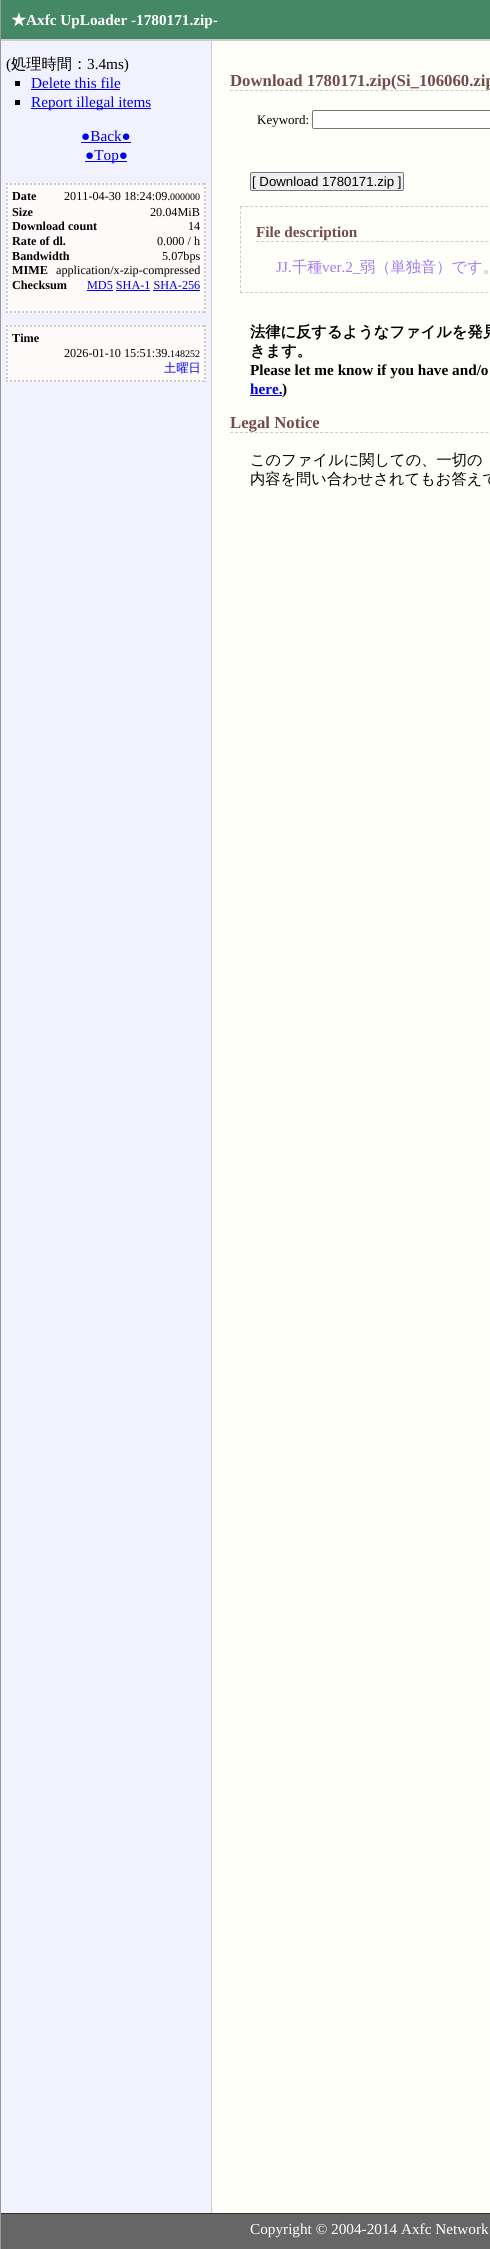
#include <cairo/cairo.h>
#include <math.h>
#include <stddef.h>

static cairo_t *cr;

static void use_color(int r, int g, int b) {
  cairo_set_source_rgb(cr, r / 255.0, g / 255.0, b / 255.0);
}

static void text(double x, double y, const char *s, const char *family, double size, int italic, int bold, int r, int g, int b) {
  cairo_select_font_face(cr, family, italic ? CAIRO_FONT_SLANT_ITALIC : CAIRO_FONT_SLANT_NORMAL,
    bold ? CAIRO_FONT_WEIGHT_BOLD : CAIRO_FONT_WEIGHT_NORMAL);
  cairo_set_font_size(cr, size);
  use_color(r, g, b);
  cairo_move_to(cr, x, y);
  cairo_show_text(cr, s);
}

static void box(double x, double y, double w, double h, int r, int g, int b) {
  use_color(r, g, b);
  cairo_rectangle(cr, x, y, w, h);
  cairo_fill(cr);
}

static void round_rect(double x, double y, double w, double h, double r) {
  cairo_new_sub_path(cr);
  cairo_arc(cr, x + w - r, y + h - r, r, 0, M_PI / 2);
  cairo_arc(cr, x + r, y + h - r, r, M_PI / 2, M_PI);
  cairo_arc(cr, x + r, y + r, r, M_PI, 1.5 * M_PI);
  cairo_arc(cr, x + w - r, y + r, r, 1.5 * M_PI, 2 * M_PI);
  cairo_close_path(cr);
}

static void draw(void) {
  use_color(255, 255, 250);
  cairo_paint(cr);
  box(0, 0, 1, 2249, 153, 153, 153);
  box(1, 0, 489, 39, 68, 136, 102);
  box(1, 39, 489, 2, 204, 204, 204);
  box(1, 41, 210, 2172, 242, 242, 255);
  box(211, 41, 1, 2172, 204, 204, 204);
  box(15, 81, 5, 5, 0, 0, 0);
  box(31, 89, 89, 1, 0, 0, 238);
  box(15, 100, 5, 5, 0, 0, 0);
  box(31, 108, 120, 1, 0, 0, 238);
  box(81, 142, 50, 1, 0, 0, 238);
  box(85, 161, 42, 1, 0, 0, 238);
  box(6, 183, 200, 130, 255, 250, 250);
  cairo_new_path(cr);
  cairo_move_to(cr, 6, 184);
  cairo_line_to(cr, 206, 184);
  use_color(204, 204, 204);
  cairo_set_dash(cr, (double[]){2, 2}, 2, 0);
  cairo_stroke(cr);
  cairo_new_path(cr);
  cairo_move_to(cr, 205, 183);
  cairo_line_to(cr, 205, 313);
  cairo_stroke(cr);
  cairo_new_path(cr);
  cairo_move_to(cr, 6, 312);
  cairo_line_to(cr, 206, 312);
  cairo_stroke(cr);
  cairo_new_path(cr);
  cairo_move_to(cr, 7, 183);
  cairo_line_to(cr, 7, 313);
  cairo_stroke(cr);
  box(87, 290, 26, 1, 0, 0, 238);
  box(116, 290, 34, 1, 0, 0, 238);
  box(153, 290, 47, 1, 0, 0, 238);
  box(6, 325, 200, 57, 255, 250, 250);
  cairo_new_path(cr);
  cairo_move_to(cr, 6, 326);
  cairo_line_to(cr, 206, 326);
  use_color(204, 204, 204);
  cairo_stroke(cr);
  cairo_new_path(cr);
  cairo_move_to(cr, 205, 325);
  cairo_line_to(cr, 205, 382);
  cairo_stroke(cr);
  cairo_new_path(cr);
  cairo_move_to(cr, 6, 381);
  cairo_line_to(cr, 206, 381);
  cairo_stroke(cr);
  cairo_new_path(cr);
  cairo_move_to(cr, 7, 325);
  cairo_line_to(cr, 7, 382);
  cairo_stroke(cr);
  cairo_new_path(cr);
  cairo_move_to(cr, 230, 90.5);
  cairo_line_to(cr, 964, 90.5);
  cairo_set_line_width(cr, 1);
  cairo_set_dash(cr, (double[]){3, 2.01}, 2, 0);
  cairo_stroke(cr);
  use_color(255, 255, 255);
  round_rect(312.5, 110.5, 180, 18, 1.5);
  cairo_fill_preserve(cr);
  use_color(118, 118, 118);
  cairo_set_dash(cr, NULL, 0, 0);
  cairo_stroke(cr);
  use_color(239, 239, 239);
  round_rect(250.5, 172.5, 153, 18, 1.5);
  cairo_fill_preserve(cr);
  use_color(118, 118, 118);
  cairo_stroke(cr);
  cairo_new_path(cr);
  cairo_move_to(cr, 240, 206.5);
  cairo_line_to(cr, 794, 206.5);
  use_color(204, 204, 204);
  cairo_set_dash(cr, (double[]){3, 2.01}, 2, 0);
  cairo_stroke(cr);
  cairo_new_path(cr);
  cairo_move_to(cr, 240, 292.5);
  cairo_line_to(cr, 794, 292.5);
  cairo_stroke(cr);
  cairo_new_path(cr);
  cairo_move_to(cr, 240.5, 206);
  cairo_line_to(cr, 240.5, 293);
  cairo_set_dash(cr, (double[]){3, 1.94}, 2, 0);
  cairo_stroke(cr);
  cairo_new_path(cr);
  cairo_move_to(cr, 256, 241.5);
  cairo_line_to(cr, 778, 241.5);
  cairo_set_dash(cr, (double[]){3, 1.99}, 2, 0);
  cairo_stroke(cr);
  box(250, 395, 32, 1, 0, 0, 238);
  cairo_new_path(cr);
  cairo_move_to(cr, 230, 432.5);
  cairo_line_to(cr, 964, 432.5);
  use_color(204, 204, 204);
  cairo_set_dash(cr, (double[]){3, 2.01}, 2, 0);
  cairo_stroke(cr);
  box(1, 2214, 489, 35, 102, 102, 102);
  box(1, 2213, 489, 1, 51, 51, 51);
  text(11, 25, "★", "WenQuanYi Zen Hei", 15.25, 0, 1, 255, 255, 255);
  text(26, 25, "Axfc UpLoader -1780171.zip-", "Liberation Serif", 15.25, 0, 1, 255, 255, 255);
  text(6, 69, "(", "Liberation Serif", 15.25, 0, 0, 0, 0, 0);
  text(11, 69, "処理時間：", "WenQuanYi Zen Hei Medium", 15.25, 0, 0, 0, 0, 0);
  text(87, 69, "3.4ms)", "Liberation Serif", 15.25, 0, 0, 0, 0, 0);
  text(31, 88, "Delete this file", "Liberation Serif", 15.25, 0, 0, 0, 0, 238);
  text(31, 107, "Report illegal items", "Liberation Serif", 15.25, 0, 0, 0, 0, 238);
  text(81, 141, "●Back●", "Liberation Serif", 15.25, 0, 0, 0, 0, 238);
  text(85, 160, "●Top●", "Liberation Serif", 15.25, 0, 0, 0, 0, 238);
  text(12, 200, "Date", "Liberation Serif", 12.2, 0, 1, 0, 0, 0);
  text(64, 200, "2011-04-30 18:24:09.", "Liberation Serif", 12.2, 0, 0, 0, 0, 0);
  text(170, 200, "000000", "Liberation Serif", 10, 0, 0, 0, 0, 0);
  text(12, 216, "Size", "Liberation Serif", 12.2, 0, 1, 0, 0, 0);
  text(150, 216, "20.04MiB", "Liberation Serif", 12.2, 0, 0, 0, 0, 0);
  text(12, 230, "Download count", "Liberation Serif", 12.2, 0, 1, 0, 0, 0);
  text(188, 230, "14", "Liberation Serif", 12.2, 0, 0, 0, 0, 0);
  text(12, 245, "Rate of dl.", "Liberation Serif", 12.2, 0, 1, 0, 0, 0);
  text(157, 245, "0.000 / h", "Liberation Serif", 12.2, 0, 0, 0, 0, 0);
  text(12, 260, "Bandwidth", "Liberation Serif", 12.2, 0, 1, 0, 0, 0);
  text(162, 260, "5.07bps", "Liberation Serif", 12.2, 0, 0, 0, 0, 0);
  text(12, 274, "MIME", "Liberation Serif", 12.2, 0, 1, 0, 0, 0);
  text(56, 274, "application/x-zip-compressed", "Liberation Serif", 12.2, 0, 0, 0, 0, 0);
  text(12, 289, "Checksum", "Liberation Serif", 12.2, 0, 1, 0, 0, 0);
  text(87, 289, "MD5 SHA-1 SHA-256", "Liberation Serif", 12.2, 0, 0, 0, 0, 238);
  text(12, 342, "Time", "Liberation Serif", 12.2, 0, 1, 0, 0, 0);
  text(64, 357, "2026-01-10 15:51:39.", "Liberation Serif", 12.2, 0, 0, 0, 0, 0);
  text(170, 357, "148252", "Liberation Serif", 10, 0, 0, 0, 0, 0);
  text(164, 372, "土曜日", "WenQuanYi Zen Hei Medium", 12.2, 0, 0, 0, 0, 255);
  text(230, 86, "Download 1780171.zip(Si_106060.zip", "Liberation Serif", 16.75, 0, 1, 116, 75, 75);
  text(257, 124, "Keyword:", "Liberation Serif", 13, 0, 0, 0, 0, 0);
  text(252, 186, "[ Download 1780171.zip ]", "Liberation Sans", 13.25, 0, 0, 0, 0, 0);
  text(256, 237, "File description", "Liberation Serif", 15.25, 0, 1, 116, 75, 75);
  text(276, 272, "JJ.", "Liberation Serif", 15.25, 0, 0, 159, 121, 238);
  text(292, 272, "千種", "WenQuanYi Zen Hei Medium", 15.25, 0, 0, 159, 121, 238);
  text(322, 272, "ver.2_", "Liberation Serif", 15.25, 0, 0, 159, 121, 238);
  text(360, 272, "弱（単独音）です。", "WenQuanYi Zen Hei Medium", 15.25, 0, 0, 159, 121, 238);
  text(250, 337, "法律に反するようなファイルを発見", "WenQuanYi Zen Hei", 15.25, 0, 1, 0, 0, 0);
  text(250, 356, "きます。", "WenQuanYi Zen Hei", 15.25, 0, 1, 0, 0, 0);
  text(250, 375, "Please let me know if you have and/o", "Liberation Serif", 15.25, 0, 1, 0, 0, 0);
  text(250, 394, "here.", "Liberation Serif", 15.25, 0, 1, 0, 0, 238);
  text(282, 394, ")", "Liberation Serif", 15.25, 0, 1, 0, 0, 0);
  text(230, 428, "Legal Notice", "Liberation Serif", 16.75, 0, 1, 116, 75, 75);
  text(250, 465, "このファイルに関しての、一切の", "WenQuanYi Zen Hei Medium", 15.25, 0, 0, 0, 0, 0);
  text(250, 484, "内容を問い合わせされてもお答えで", "WenQuanYi Zen Hei Medium", 15.25, 0, 0, 0, 0, 0);
  text(250, 2234, "Copyright © 2004-2014 Axfc Network", "Liberation Serif", 15.25, 0, 0, 255, 255, 255);
}

int main(void) {
  cairo_surface_t *surface = cairo_image_surface_create(CAIRO_FORMAT_RGB24, 490, 2249);
  cr = cairo_create(surface);
  cairo_font_options_t *options = cairo_font_options_create();
  cairo_font_options_set_hint_metrics(options, CAIRO_HINT_METRICS_OFF);
  cairo_font_options_set_hint_style(options, CAIRO_HINT_STYLE_NONE);
  cairo_set_font_options(cr, options);
  cairo_set_miter_limit(cr, 4);
  draw();
  cairo_surface_write_to_png(surface, "out.png");
  cairo_font_options_destroy(options);
  cairo_destroy(cr);
  cairo_surface_destroy(surface);
  return 0;
}
